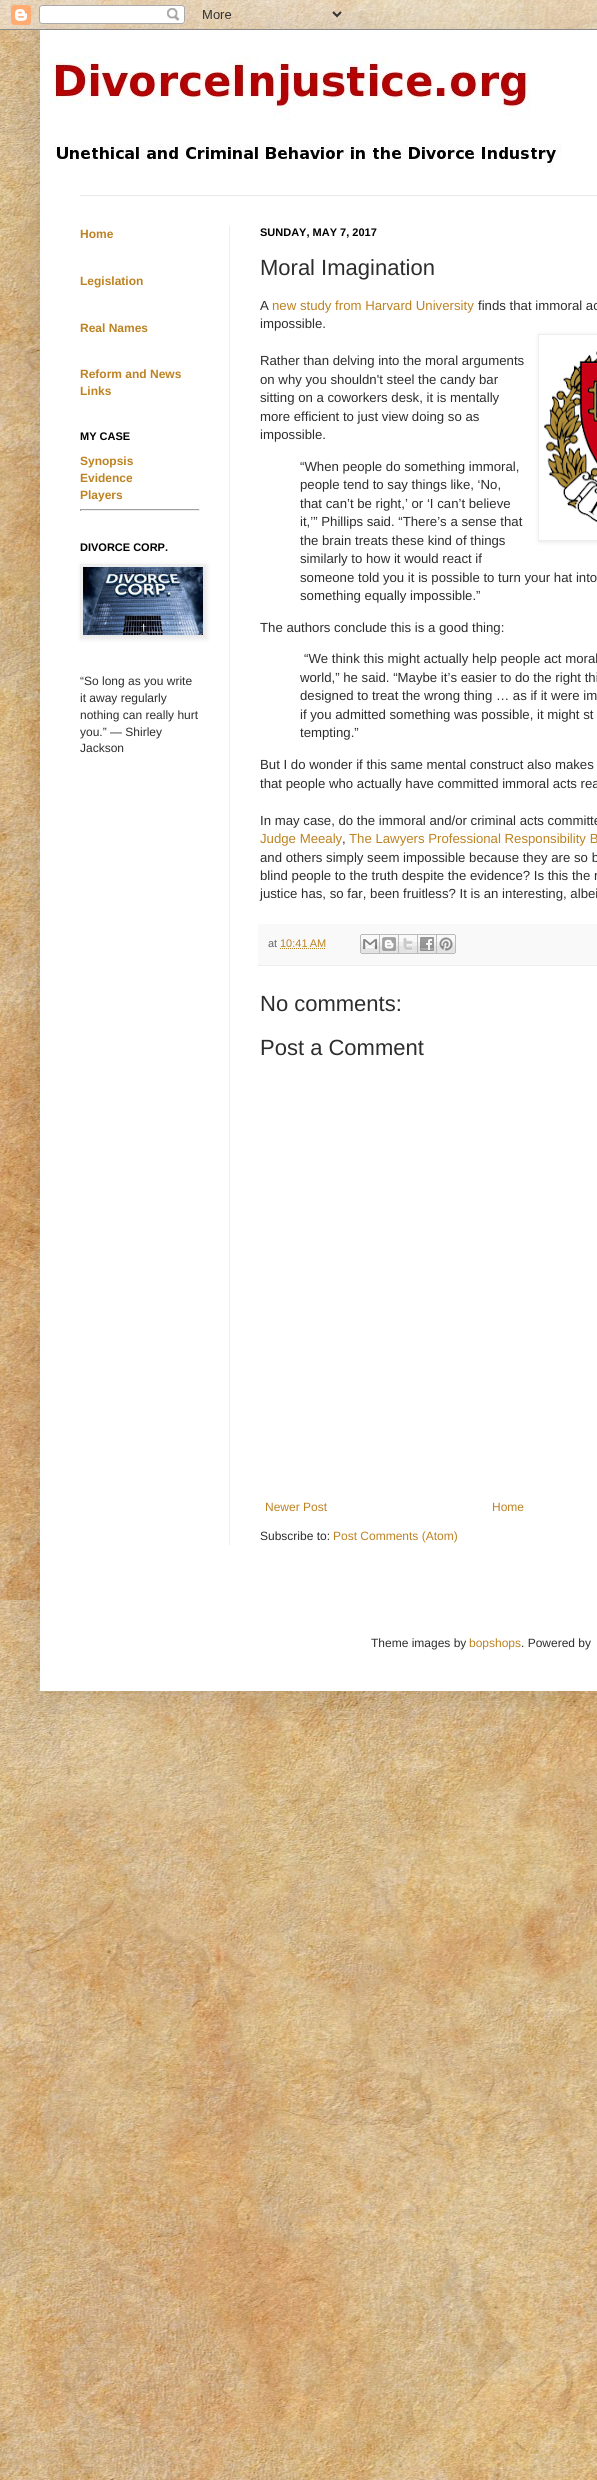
#include <cairo/cairo.h>
#include <math.h>
#include <stddef.h>

static cairo_t *cr;

static void use_color(int r, int g, int b) {
  cairo_set_source_rgb(cr, r / 255.0, g / 255.0, b / 255.0);
}

static void text(double x, double y, const char *s, const char *family, double size, int italic, int bold, int r, int g, int b) {
  cairo_select_font_face(cr, family, italic ? CAIRO_FONT_SLANT_ITALIC : CAIRO_FONT_SLANT_NORMAL,
    bold ? CAIRO_FONT_WEIGHT_BOLD : CAIRO_FONT_WEIGHT_NORMAL);
  cairo_set_font_size(cr, size);
  use_color(r, g, b);
  cairo_move_to(cr, x, y);
  cairo_show_text(cr, s);
}

static void box(double x, double y, double w, double h, int r, int g, int b) {
  use_color(r, g, b);
  cairo_rectangle(cr, x, y, w, h);
  cairo_fill(cr);
}

static void round_rect(double x, double y, double w, double h, double r) {
  cairo_new_sub_path(cr);
  cairo_arc(cr, x + w - r, y + h - r, r, 0, M_PI / 2);
  cairo_arc(cr, x + r, y + h - r, r, M_PI / 2, M_PI);
  cairo_arc(cr, x + r, y + r, r, M_PI, 1.5 * M_PI);
  cairo_arc(cr, x + w - r, y + r, r, 1.5 * M_PI, 2 * M_PI);
  cairo_close_path(cr);
}

static void shadow(double x, double y, double w, double h, double r, double blur, double alpha) {
  cairo_push_group_with_content(cr, CAIRO_CONTENT_ALPHA);
  cairo_set_operator(cr, CAIRO_OPERATOR_SOURCE);
  for (int i = 15; i >= -15 && fmin(w, h) + blur * i / 3 > 0; i -= 2) {
    double e = blur * i / 6;
    cairo_set_source_rgba(cr, 0, 0, 0, alpha * erfc((i - 1) / 8.5) / 2);
    round_rect(x - e, y - e, w + 2 * e, h + 2 * e, fmax(0, fmin(r + e + blur * .6, fmin(w, h) / 2 + e)));
    cairo_fill(cr);
  }
  cairo_pattern_t *soft = cairo_pop_group(cr);
  cairo_mask(cr, soft);
  cairo_pattern_destroy(soft);
}

static void picture(const char *path, double x, double y, double w, double h) {
  cairo_surface_t *image = cairo_image_surface_create_from_png(path);
  cairo_save(cr);
  cairo_set_source_surface(cr, image, x, y);
  cairo_rectangle(cr, x, y, w, h);
  cairo_fill(cr);
  cairo_restore(cr);
  cairo_surface_destroy(image);
}

static void draw(void) {
  use_color(255, 255, 255);
  cairo_paint(cr);
  picture("img_01.png", 0, 400, 597, 2080);
  picture("img_02.png", 0, 0, 597, 400);
  use_color(0, 0, 0);
  shadow(40, 30, 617, 1661, 0, 20, 0.15);
  picture("img_03.png", 0, 0, 597, 30);
  box(40, 30, 557, 1661, 255, 255, 255);
  picture("img_04.png", 50, 55, 512, 113);
  box(80, 195, 517, 1, 233, 233, 233);
  box(229, 226, 1, 1319, 238, 238, 238);
  box(80, 509, 120, 1, 159, 159, 159);
  box(199, 509, 1, 2, 238, 238, 238);
  box(80, 510, 120, 1, 238, 238, 238);
  box(80, 509, 1, 2, 159, 159, 159);
  use_color(0, 0, 0);
  shadow(81, 565, 126, 74, 0, 2.5, 0.1);
  cairo_rectangle(cr, 80.5, 564.5, 125, 73);
  use_color(238, 238, 238);
  cairo_set_line_width(cr, 1);
  cairo_stroke(cr);
  picture("img_05.png", 83, 567, 120, 68);
  cairo_save(cr);
  cairo_set_fill_rule(cr, CAIRO_FILL_RULE_EVEN_ODD);
  cairo_new_path(cr);
  cairo_move_to(cr, 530, 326);
  cairo_line_to(cr, 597, 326);
  cairo_line_to(cr, 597, 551);
  cairo_line_to(cr, 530, 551);
  cairo_close_path(cr);
  cairo_move_to(cr, 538, 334);
  cairo_line_to(cr, 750, 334);
  cairo_line_to(cr, 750, 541);
  cairo_line_to(cr, 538, 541);
  cairo_close_path(cr);
  cairo_clip(cr);
  use_color(0, 0, 0);
  shadow(539, 335, 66, 207, 0, 2.5, 0.1);
  cairo_restore(cr);
  cairo_rectangle(cr, 538.5, 334.5, 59, 206);
  cairo_stroke(cr);
  picture("img_06.png", 544, 351, 53, 172);
  box(258, 924, 339, 41, 249, 249, 249);
  box(258, 965, 339, 1, 238, 238, 238);
  cairo_new_path(cr);
  cairo_move_to(cr, 280, 948.5);
  cairo_line_to(cr, 325.5, 948.5);
  use_color(189, 130, 34);
  cairo_set_dash(cr, (double[]){1, 1}, 2, 0);
  cairo_stroke(cr);
  picture("img_07.png", 360, 934, 20, 20);
  picture("img_08.png", 380, 934, 19, 20);
  picture("img_09.png", 399, 934, 19, 20);
  picture("img_10.png", 418, 934, 19, 20);
  picture("img_11.png", 437, 934, 19, 20);
  text(80, 238, "Home", "Liberation Sans", 12, 0, 1, 189, 130, 34);
  text(80, 285, "Legislation", "Liberation Sans", 12, 0, 1, 189, 130, 34);
  text(80, 332, "Real Names", "Liberation Sans", 12, 0, 1, 189, 130, 34);
  text(80, 378, "Reform and News", "Liberation Sans", 12, 0, 1, 189, 130, 34);
  text(80, 395, "Links", "Liberation Sans", 12, 0, 1, 189, 130, 34);
  text(80, 440, "MY CASE", "Liberation Sans", 11, 0, 1, 0, 0, 0);
  text(80, 465, "Synopsis", "Liberation Sans", 12, 0, 1, 189, 130, 34);
  text(80, 482, "Evidence", "Liberation Sans", 12, 0, 1, 189, 130, 34);
  text(80, 499, "Players", "Liberation Sans", 12, 0, 1, 189, 130, 34);
  text(80, 551, "DIVORCE CORP.", "Liberation Sans", 11, 0, 1, 0, 0, 0);
  text(80, 685, "“So long as you write", "Liberation Sans", 12, 0, 0, 45, 45, 45);
  text(80, 702, "it away regularly", "Liberation Sans", 12, 0, 0, 45, 45, 45);
  text(80, 719, "nothing can really hurt", "Liberation Sans", 12, 0, 0, 45, 45, 45);
  text(80, 736, "you.” ― Shirley", "Liberation Sans", 12, 0, 0, 45, 45, 45);
  text(80, 752, "Jackson", "Liberation Sans", 12, 0, 0, 45, 45, 45);
  text(260, 236, "SUNDAY, MAY 7, 2017", "Liberation Sans", 11, 0, 1, 0, 0, 0);
  text(260, 275, "Moral Imagination", "Liberation Sans", 22, 0, 0, 45, 45, 45);
  text(260, 310, "A", "Liberation Sans", 13.2, 0, 0, 45, 45, 45);
  text(272, 310, "new study from Harvard University", "Liberation Sans", 13.2, 0, 0, 189, 130, 34);
  text(478, 310, "finds that immoral ac", "Liberation Sans", 13.2, 0, 0, 45, 45, 45);
  text(260, 328, "impossible.", "Liberation Sans", 13.2, 0, 0, 45, 45, 45);
  text(260, 365, "Rather than delving into the moral arguments", "Liberation Sans", 13.2, 0, 0, 45, 45, 45);
  text(260, 384, "on why you shouldn't steel the candy bar", "Liberation Sans", 13.2, 0, 0, 45, 45, 45);
  text(260, 402, "sitting on a coworkers desk, it is mentally", "Liberation Sans", 13.2, 0, 0, 45, 45, 45);
  text(260, 421, "more efficient to just view doing so as", "Liberation Sans", 13.2, 0, 0, 45, 45, 45);
  text(260, 439, "impossible.", "Liberation Sans", 13.2, 0, 0, 45, 45, 45);
  text(300, 471, "“When people do something immoral,", "Liberation Sans", 13.2, 0, 0, 45, 45, 45);
  text(300, 489, "people tend to say things like, ‘No,", "Liberation Sans", 13.2, 0, 0, 45, 45, 45);
  text(300, 508, "that can’t be right,’ or ‘I can’t believe", "Liberation Sans", 13.2, 0, 0, 45, 45, 45);
  text(300, 526, "it,’” Phillips said. “There’s a sense that", "Liberation Sans", 13.2, 0, 0, 45, 45, 45);
  text(300, 545, "the brain treats these kind of things", "Liberation Sans", 13.2, 0, 0, 45, 45, 45);
  text(300, 563, "similarly to how it would react if", "Liberation Sans", 13.2, 0, 0, 45, 45, 45);
  text(300, 582, "someone told you it is possible to turn your hat into", "Liberation Sans", 13.2, 0, 0, 45, 45, 45);
  text(300, 600, "something equally impossible.”", "Liberation Sans", 13.2, 0, 0, 45, 45, 45);
  text(260, 632, "The authors conclude this is a good thing:", "Liberation Sans", 13.2, 0, 0, 45, 45, 45);
  text(304, 663, "“We think this might actually help people act moral", "Liberation Sans", 13.2, 0, 0, 45, 45, 45);
  text(300, 682, "world,” he said. “Maybe it’s easier to do the right thi", "Liberation Sans", 13.2, 0, 0, 45, 45, 45);
  text(300, 700, "designed to treat the wrong thing … as if it were im", "Liberation Sans", 13.2, 0, 0, 45, 45, 45);
  text(300, 719, "if you admitted something was possible, it might st", "Liberation Sans", 13.2, 0, 0, 45, 45, 45);
  text(300, 737, "tempting.”", "Liberation Sans", 13.2, 0, 0, 45, 45, 45);
  text(260, 769, "But I do wonder if this same mental construct also makes", "Liberation Sans", 13.2, 0, 0, 45, 45, 45);
  text(260, 788, "that people who actually have committed immoral acts rea", "Liberation Sans", 13.2, 0, 0, 45, 45, 45);
  text(260, 825, "In may case, do the immoral and/or criminal acts committe", "Liberation Sans", 13.2, 0, 0, 45, 45, 45);
  text(260, 843, "Judge Meealy", "Liberation Sans", 13.2, 0, 0, 189, 130, 34);
  text(342, 843, ",", "Liberation Sans", 13.2, 0, 0, 45, 45, 45);
  text(349, 843, "The Lawyers Professional Responsibility B", "Liberation Sans", 13.2, 0, 0, 189, 130, 34);
  text(260, 862, "and others simply seem impossible because they are so b", "Liberation Sans", 13.2, 0, 0, 45, 45, 45);
  text(260, 880, "blind people to the truth despite the evidence? Is this the r", "Liberation Sans", 13.2, 0, 0, 45, 45, 45);
  text(260, 898, "justice has, so far, been fruitless? It is an interesting, albei", "Liberation Sans", 13.2, 0, 0, 45, 45, 45);
  text(268, 947, "at", "Liberation Sans", 11, 0, 0, 103, 103, 103);
  text(280, 947, "10:41 AM", "Liberation Sans", 11, 0, 0, 189, 130, 34);
  text(260, 1011, "No comments:", "Liberation Sans", 22, 0, 0, 45, 45, 45);
  text(260, 1055, "Post a Comment", "Liberation Sans", 22, 0, 0, 45, 45, 45);
  text(265, 1511, "Newer Post", "Liberation Sans", 12, 0, 0, 189, 130, 34);
  text(492, 1511, "Home", "Liberation Sans", 12, 0, 0, 189, 130, 34);
  text(260, 1540, "Subscribe to:", "Liberation Sans", 12, 0, 0, 45, 45, 45);
  text(333, 1540, "Post Comments (Atom)", "Liberation Sans", 12, 0, 0, 189, 130, 34);
  text(371, 1647, "Theme images by", "Liberation Sans", 12, 0, 0, 45, 45, 45);
  text(469, 1647, "bopshops", "Liberation Sans", 12, 0, 0, 189, 130, 34);
  text(521, 1647, ". Powered by", "Liberation Sans", 12, 0, 0, 45, 45, 45);
}

int main(void) {
  cairo_surface_t *surface = cairo_image_surface_create(CAIRO_FORMAT_RGB24, 597, 2480);
  cr = cairo_create(surface);
  cairo_font_options_t *options = cairo_font_options_create();
  cairo_font_options_set_hint_metrics(options, CAIRO_HINT_METRICS_OFF);
  cairo_font_options_set_hint_style(options, CAIRO_HINT_STYLE_NONE);
  cairo_set_font_options(cr, options);
  cairo_set_miter_limit(cr, 4);
  draw();
  cairo_surface_write_to_png(surface, "out.png");
  cairo_font_options_destroy(options);
  cairo_destroy(cr);
  cairo_surface_destroy(surface);
  return 0;
}
